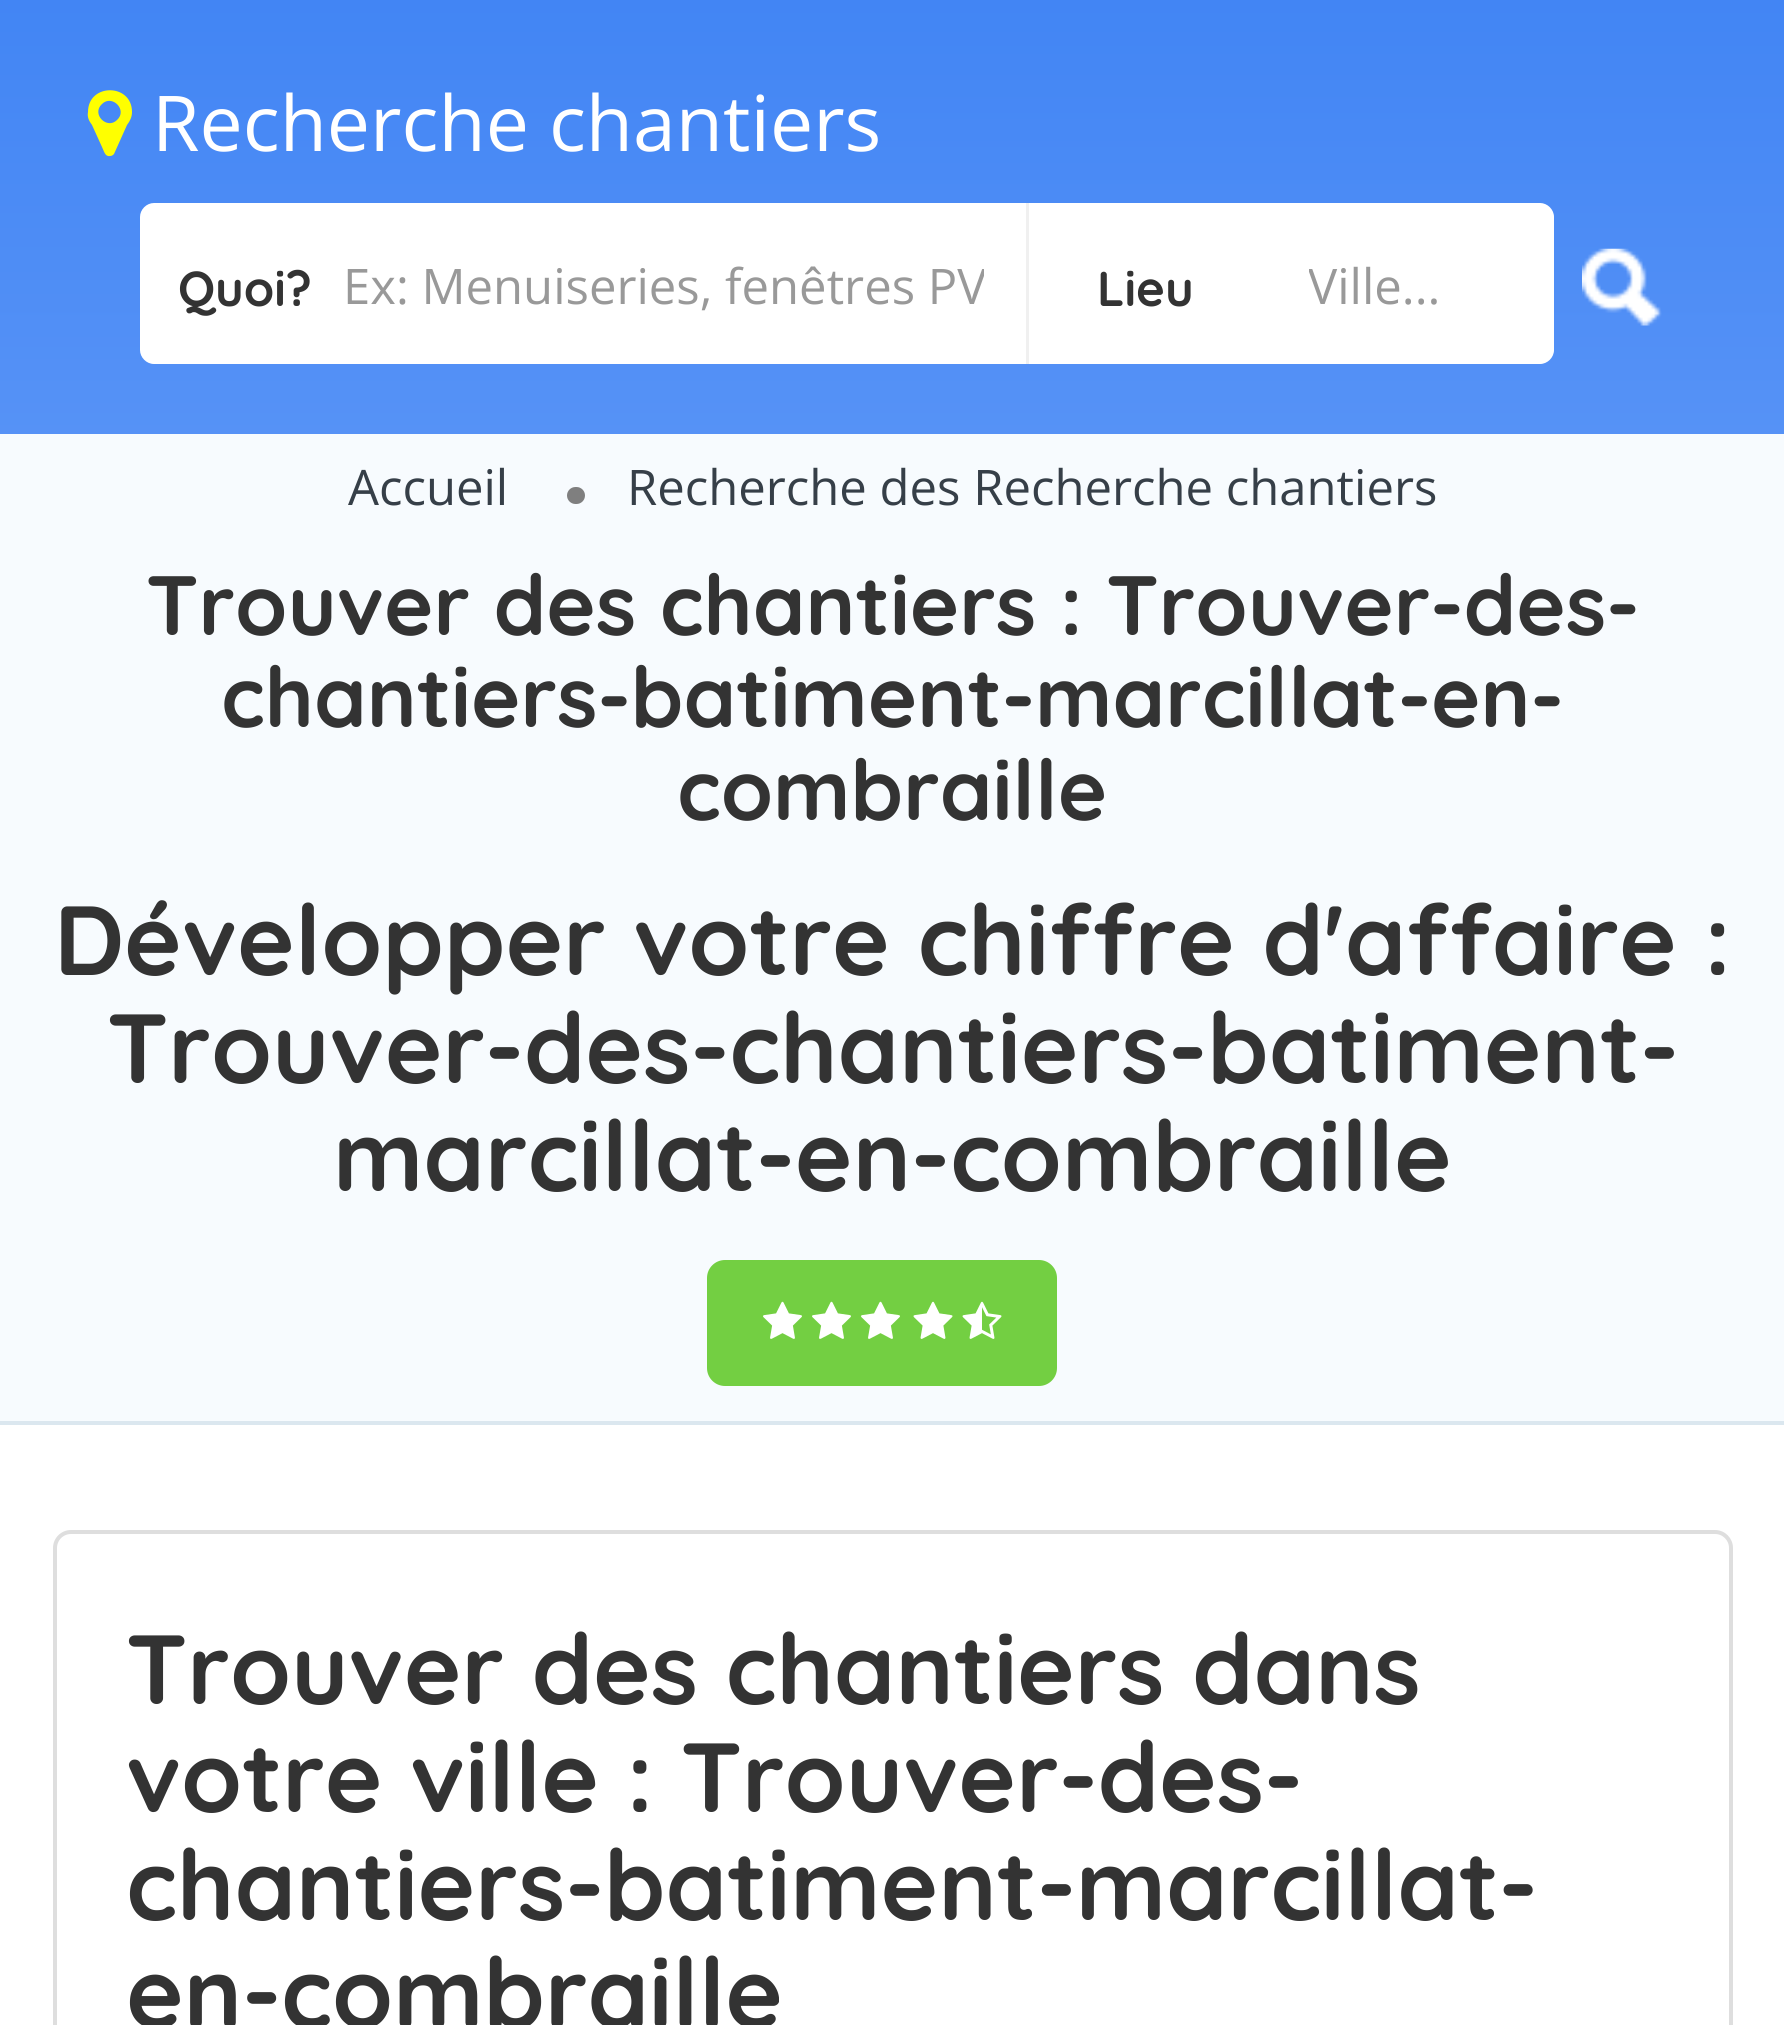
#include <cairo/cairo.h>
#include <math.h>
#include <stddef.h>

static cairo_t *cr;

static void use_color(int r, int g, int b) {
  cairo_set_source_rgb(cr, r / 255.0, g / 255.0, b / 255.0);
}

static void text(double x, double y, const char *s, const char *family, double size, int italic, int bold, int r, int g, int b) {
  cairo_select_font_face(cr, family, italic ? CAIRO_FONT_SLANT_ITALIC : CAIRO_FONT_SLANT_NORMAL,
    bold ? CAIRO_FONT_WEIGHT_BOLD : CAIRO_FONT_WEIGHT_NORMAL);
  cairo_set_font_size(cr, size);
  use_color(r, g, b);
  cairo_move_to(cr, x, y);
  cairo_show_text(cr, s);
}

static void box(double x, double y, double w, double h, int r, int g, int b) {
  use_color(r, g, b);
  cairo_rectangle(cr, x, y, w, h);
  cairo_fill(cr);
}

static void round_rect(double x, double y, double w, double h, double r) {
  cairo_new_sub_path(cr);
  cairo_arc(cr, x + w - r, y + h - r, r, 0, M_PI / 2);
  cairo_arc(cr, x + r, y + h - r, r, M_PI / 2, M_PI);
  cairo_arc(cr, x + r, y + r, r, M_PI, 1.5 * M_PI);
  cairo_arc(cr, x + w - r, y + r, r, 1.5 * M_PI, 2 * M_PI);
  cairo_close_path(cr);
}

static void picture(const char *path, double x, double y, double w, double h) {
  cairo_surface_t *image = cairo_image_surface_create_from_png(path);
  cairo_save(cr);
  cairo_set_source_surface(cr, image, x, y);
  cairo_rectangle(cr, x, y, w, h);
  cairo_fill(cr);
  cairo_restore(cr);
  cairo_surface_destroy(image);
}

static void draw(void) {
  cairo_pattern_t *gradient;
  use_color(255, 255, 255);
  cairo_paint(cr);
  gradient = cairo_pattern_create_linear(893, 0, 893, 434);
  cairo_pattern_add_color_stop_rgba(gradient, 0, 0.259, 0.522, 0.957, 1);
  cairo_pattern_add_color_stop_rgba(gradient, 1, 0.337, 0.573, 0.965, 1);
  cairo_set_source(cr, gradient);
  cairo_pattern_destroy(gradient);
  cairo_rectangle(cr, 0, 0, 1784, 434);
  cairo_fill(cr);
  use_color(255, 255, 0);
  cairo_new_path(cr);
  cairo_move_to(cr, 117, 120);
  cairo_curve_to(cr, 128, 110, 112, 94, 102, 104);
  cairo_curve_to(cr, 91, 114, 107, 130, 117, 120);
  cairo_close_path(cr);
  cairo_move_to(cr, 132, 112);
  cairo_curve_to(cr, 132, 117, 130, 121, 127, 125);
  cairo_line_to(cr, 114, 154);
  cairo_curve_to(cr, 113, 155, 112, 156, 110, 156);
  cairo_curve_to(cr, 105, 157, 104, 151, 102, 147);
  cairo_line_to(cr, 92, 125);
  cairo_curve_to(cr, 89, 121, 87, 117, 88, 112);
  cairo_curve_to(cr, 88, 83, 132, 83, 132, 112);
  cairo_close_path(cr);
  cairo_fill(cr);
  use_color(255, 255, 255);
  cairo_new_path(cr);
  cairo_move_to(cr, 154, 203);
  cairo_line_to(cr, 1029, 203);
  cairo_line_to(cr, 1029, 364);
  cairo_line_to(cr, 154, 364);
  cairo_curve_to(cr, 146.5, 364, 140, 357.5, 140, 350);
  cairo_line_to(cr, 140, 217);
  cairo_curve_to(cr, 140, 209.5, 146.5, 203, 154, 203);
  cairo_close_path(cr);
  cairo_fill(cr);
  box(1026, 203, 3, 161, 240, 240, 240);
  use_color(255, 255, 255);
  cairo_new_path(cr);
  cairo_move_to(cr, 1029, 203);
  cairo_line_to(cr, 1540, 203);
  cairo_curve_to(cr, 1547.5, 203, 1554, 209.5, 1554, 217);
  cairo_line_to(cr, 1554, 350);
  cairo_curve_to(cr, 1554, 357.5, 1547.5, 364, 1540, 364);
  cairo_line_to(cr, 1029, 364);
  cairo_close_path(cr);
  cairo_fill(cr);
  cairo_new_path(cr);
  cairo_move_to(cr, 1029, 203);
  cairo_line_to(cr, 1536, 203);
  cairo_curve_to(cr, 1546, 203, 1554, 211, 1554, 221);
  cairo_line_to(cr, 1554, 346);
  cairo_curve_to(cr, 1554, 356, 1546, 364, 1536, 364);
  cairo_line_to(cr, 1029, 364);
  cairo_close_path(cr);
  cairo_fill(cr);
  picture("img_01.png", 1582, 248, 80, 78);
  box(0, 434, 1784, 987, 247, 251, 254);
  box(0, 1421, 1784, 4, 219, 231, 239);
  use_color(127, 127, 127);
  round_rect(567, 487, 18, 17, 8.5);
  cairo_fill(cr);
  use_color(115, 207, 66);
  round_rect(707, 1260, 350, 126, 18);
  cairo_fill(cr);
  picture("img_02.png", 763, 1301, 39, 38);
  picture("img_02.png", 812, 1301, 39, 38);
  picture("img_02.png", 861, 1301, 39, 38);
  picture("img_03.png", 913, 1301, 40, 38);
  picture("img_04.png", 962, 1301, 40, 38);
  round_rect(55, 1532, 1676, 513, 16);
  use_color(222, 222, 222);
  cairo_set_line_width(cr, 4);
  cairo_stroke(cr);
  text(152, 151, "Recherche chantiers", "Open Sans", 77, 0, 0, 255, 255, 255);
  text(178, 306, "Quoi?", "Quicksand", 49, 0, 1, 51, 51, 51);
  cairo_save(cr);
  cairo_rectangle(cr, 343, 252, 641, 67);
  cairo_clip(cr);
  text(343, 304, "Ex: Menuiseries, fenêtres PV", "Open Sans", 49, 0, 0, 153, 153, 153);
  cairo_restore(cr);
  text(1097, 306, "Lieu", "Quicksand", 49, 0, 1, 51, 51, 51);
  cairo_save(cr);
  cairo_rectangle(cr, 1309, 252, 203, 67);
  cairo_clip(cr);
  text(1308, 304, "Ville...", "Open Sans", 49, 0, 0, 153, 153, 153);
  cairo_restore(cr);
  text(348, 505, "Accueil", "Open Sans", 49, 0, 0, 54, 63, 72);
  text(627, 505, "Recherche des Recherche chantiers", "Open Sans", 49, 0, 0, 54, 63, 72);
  text(146, 635, "Trouver des chantiers : Trouver-des-", "Quicksand", 84, 0, 1, 51, 51, 51);
  text(221, 727, "chantiers-batiment-marcillat-en-", "Quicksand", 84, 0, 1, 51, 51, 51);
  text(677, 820, "combraille", "Quicksand", 84, 0, 1, 51, 51, 51);
  text(54, 975, "Développer votre chiffre d'affaire :", "Quicksand", 98, 0, 1, 51, 51, 51);
  text(107, 1083, "Trouver-des-chantiers-batiment-", "Quicksand", 98, 0, 1, 51, 51, 51);
  text(333, 1191, "marcillat-en-combraille", "Quicksand", 98, 0, 1, 51, 51, 51);
  text(126, 1704, "Trouver des chantiers dans", "Quicksand", 98, 0, 1, 51, 51, 51);
  text(126, 1812, "votre ville : Trouver-des-", "Quicksand", 98, 0, 1, 51, 51, 51);
  text(126, 1920, "chantiers-batiment-marcillat-", "Quicksand", 98, 0, 1, 51, 51, 51);
  text(126, 2028, "en-combraille", "Quicksand", 98, 0, 1, 51, 51, 51);
}

int main(void) {
  cairo_surface_t *surface = cairo_image_surface_create(CAIRO_FORMAT_RGB24, 1784, 2025);
  cr = cairo_create(surface);
  cairo_font_options_t *options = cairo_font_options_create();
  cairo_font_options_set_hint_metrics(options, CAIRO_HINT_METRICS_OFF);
  cairo_font_options_set_hint_style(options, CAIRO_HINT_STYLE_NONE);
  cairo_set_font_options(cr, options);
  cairo_set_miter_limit(cr, 4);
  draw();
  cairo_surface_write_to_png(surface, "out.png");
  cairo_font_options_destroy(options);
  cairo_destroy(cr);
  cairo_surface_destroy(surface);
  return 0;
}
